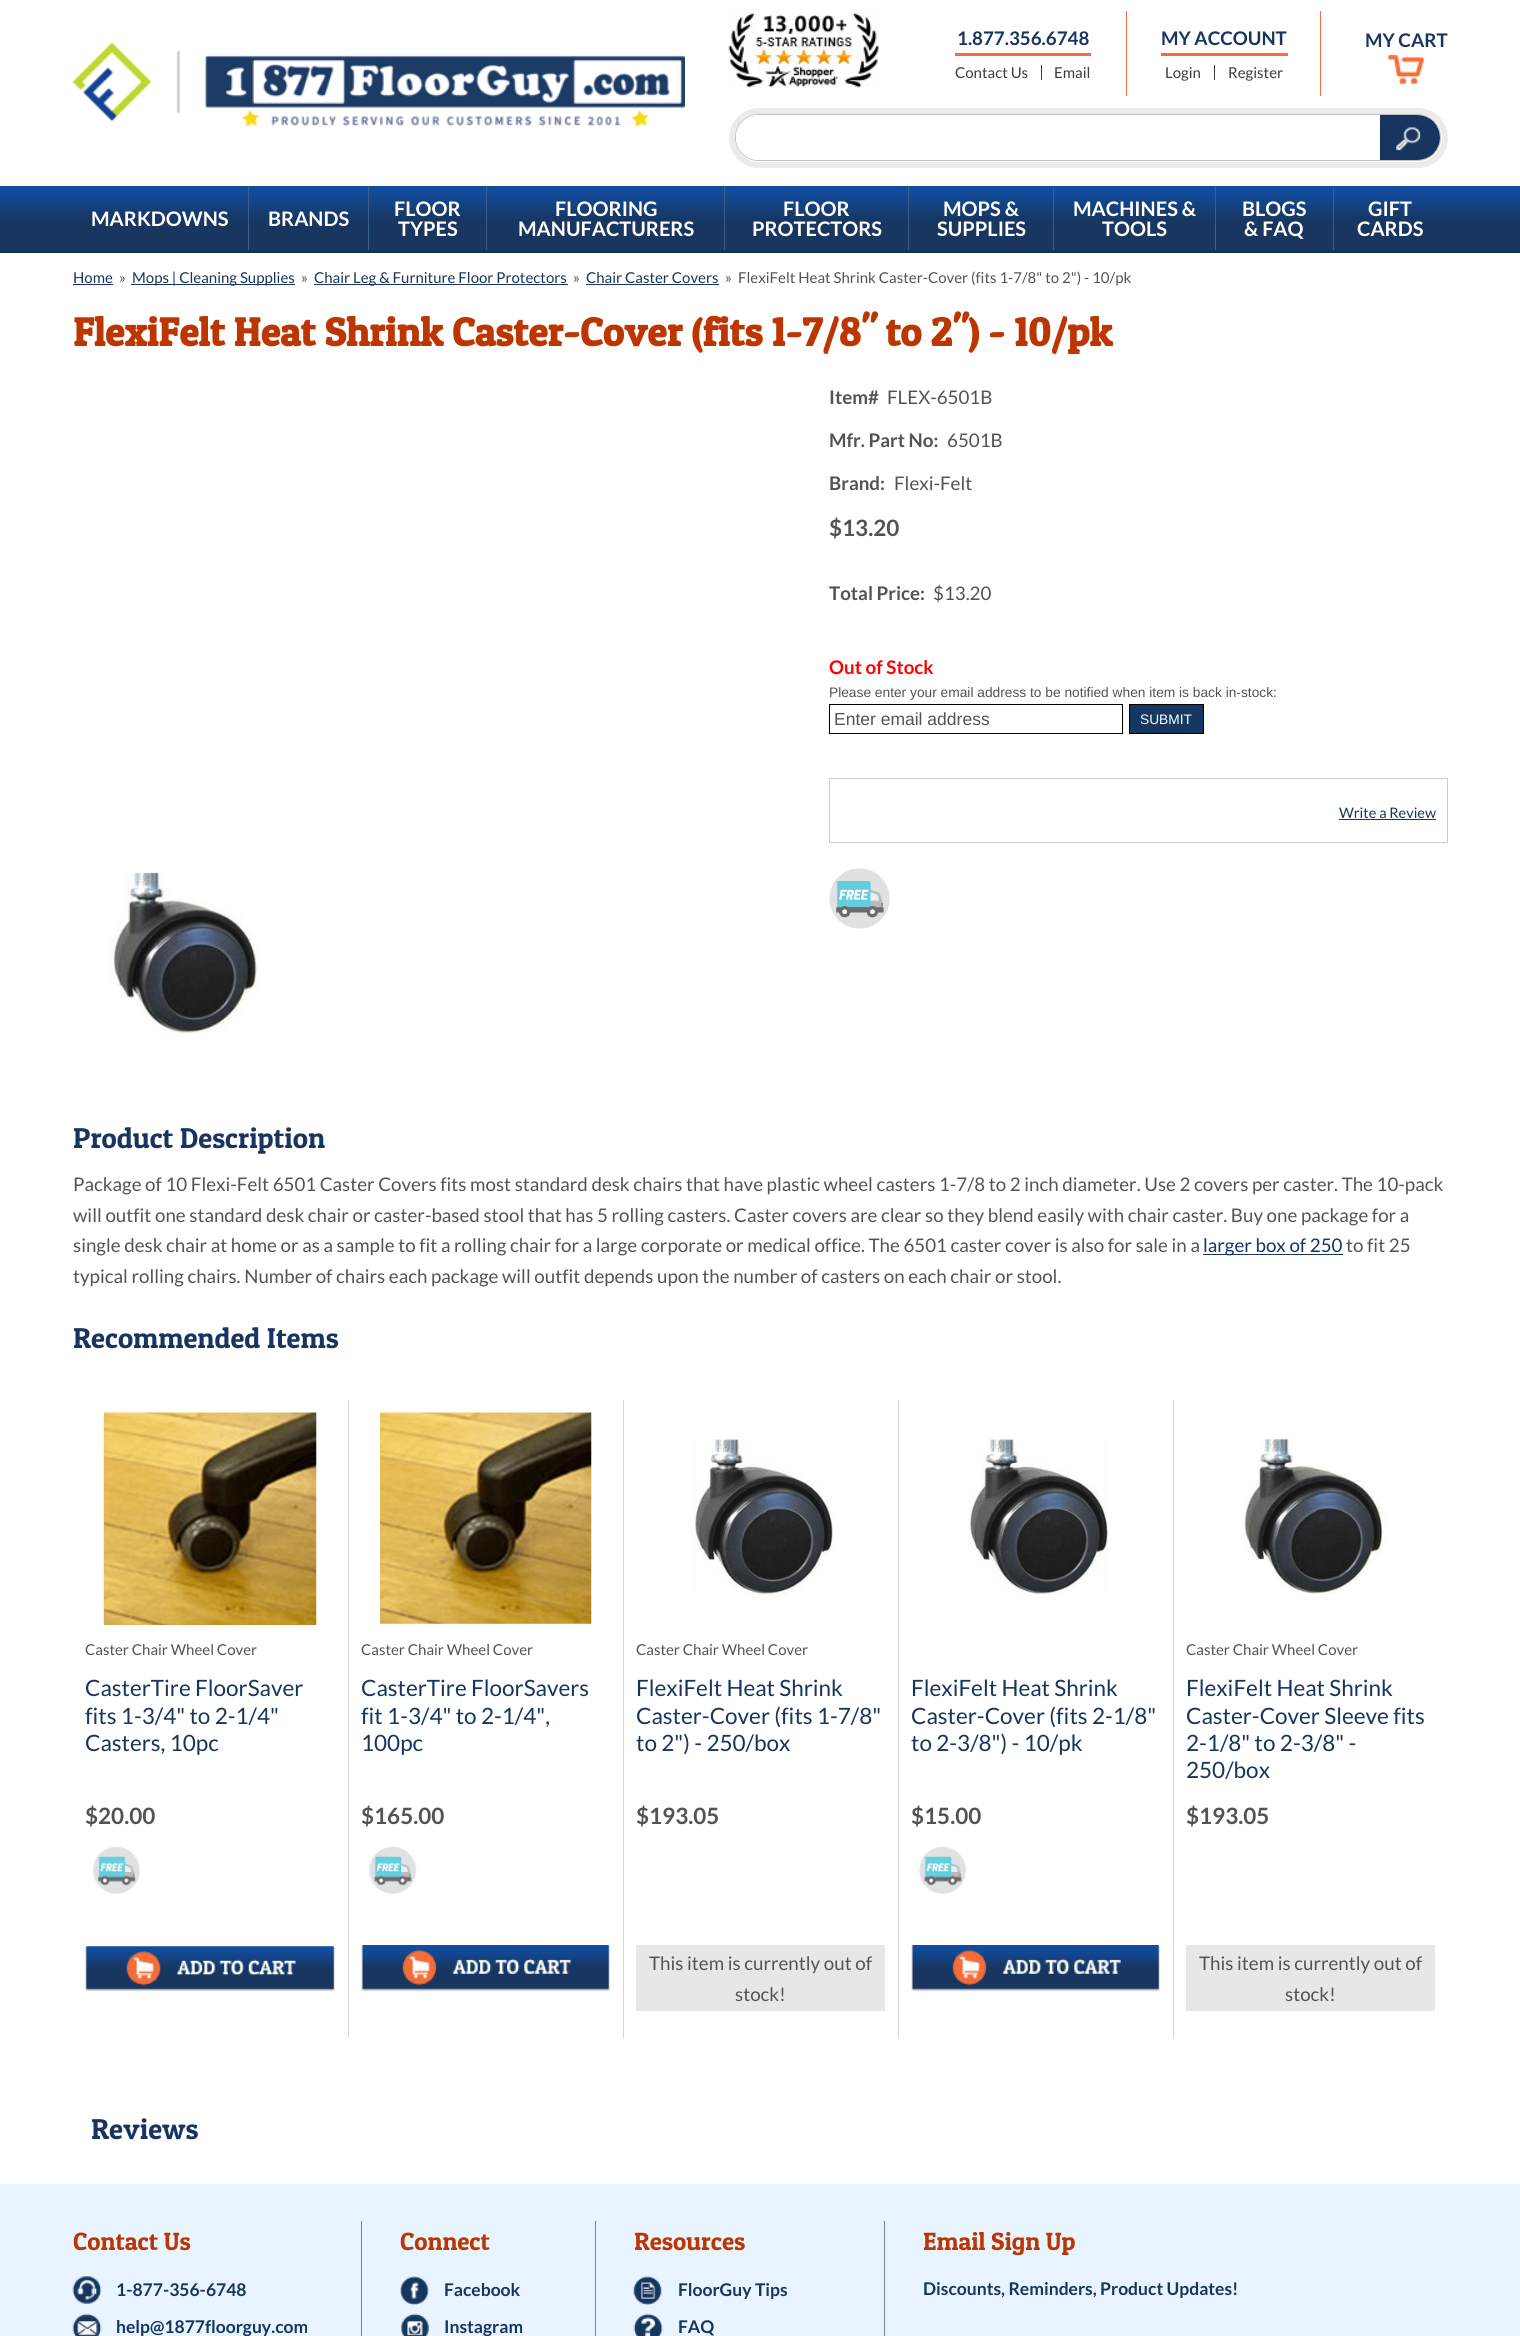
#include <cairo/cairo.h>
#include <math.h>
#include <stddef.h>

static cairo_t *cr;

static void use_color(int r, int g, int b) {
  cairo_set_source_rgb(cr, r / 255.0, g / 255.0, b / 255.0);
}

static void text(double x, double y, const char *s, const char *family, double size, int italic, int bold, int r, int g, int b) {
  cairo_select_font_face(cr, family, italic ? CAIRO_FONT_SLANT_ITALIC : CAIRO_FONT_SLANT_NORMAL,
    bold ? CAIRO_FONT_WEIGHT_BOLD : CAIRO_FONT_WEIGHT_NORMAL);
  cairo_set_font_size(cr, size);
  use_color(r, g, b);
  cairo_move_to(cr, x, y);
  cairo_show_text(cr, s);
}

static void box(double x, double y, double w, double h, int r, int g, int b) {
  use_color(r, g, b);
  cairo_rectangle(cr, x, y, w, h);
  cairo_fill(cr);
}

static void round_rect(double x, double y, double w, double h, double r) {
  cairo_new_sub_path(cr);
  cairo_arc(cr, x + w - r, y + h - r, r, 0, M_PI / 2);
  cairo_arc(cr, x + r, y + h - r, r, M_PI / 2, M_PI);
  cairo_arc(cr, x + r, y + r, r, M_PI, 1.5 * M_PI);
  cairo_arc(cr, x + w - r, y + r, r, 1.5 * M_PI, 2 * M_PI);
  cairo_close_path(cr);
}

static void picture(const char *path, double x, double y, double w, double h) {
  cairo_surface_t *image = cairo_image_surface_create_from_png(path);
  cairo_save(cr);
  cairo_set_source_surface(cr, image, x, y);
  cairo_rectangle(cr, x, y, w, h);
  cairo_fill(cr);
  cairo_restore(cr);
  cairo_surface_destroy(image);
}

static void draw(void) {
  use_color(255, 255, 255);
  cairo_paint(cr);
  picture("img_01.png", 72, 42, 613, 85);
  picture("img_02.png", 728, 13, 151, 75);
  box(1126, 11, 1, 85, 245, 109, 59);
  box(955, 53, 136, 3, 245, 109, 59);
  box(1041, 65, 1, 15, 59, 59, 59);
  box(1320, 11, 1, 85, 245, 109, 59);
  box(1161, 53, 127, 3, 245, 109, 59);
  box(1214, 65, 1, 15, 59, 59, 59);
  picture("img_03.png", 1387, 55, 37, 29);
  round_rect(732, 111, 713, 54, 27);
  use_color(235, 235, 235);
  cairo_set_line_width(cr, 6);
  cairo_stroke(cr);
  round_rect(735.5, 114.5, 705, 46, 23);
  use_color(192, 192, 192);
  cairo_set_line_width(cr, 1);
  cairo_stroke(cr);
  use_color(255, 255, 255);
  cairo_new_path(cr);
  cairo_move_to(cr, 758.5, 115);
  cairo_line_to(cr, 1380, 115);
  cairo_line_to(cr, 1380, 160);
  cairo_line_to(cr, 758.5, 160);
  cairo_curve_to(cr, 746, 160, 736, 150, 736, 137.5);
  cairo_curve_to(cr, 736, 125, 746, 115, 758.5, 115);
  cairo_close_path(cr);
  cairo_fill(cr);
  picture("img_04.png", 1380, 115, 60, 45);
  box(0, 186, 1520, 67, 23, 55, 99);
  picture("img_05.png", 0, 186, 1520, 67);
  box(248, 186, 1, 64, 55, 95, 137);
  box(368, 186, 1, 64, 55, 95, 137);
  box(486, 186, 1, 64, 55, 95, 137);
  box(724, 186, 1, 64, 55, 95, 137);
  box(908, 186, 1, 64, 55, 95, 137);
  box(1053, 186, 1, 64, 55, 95, 137);
  box(1215, 186, 1, 64, 55, 95, 137);
  box(1333, 186, 1, 64, 55, 95, 137);
  box(73, 284, 40, 1, 24, 53, 95);
  box(131, 284, 164, 1, 24, 53, 95);
  box(314, 284, 254, 1, 24, 53, 95);
  box(586, 284, 133, 1, 24, 53, 95);
  cairo_rectangle(cr, 829.5, 704.5, 293, 29);
  use_color(0, 0, 0);
  cairo_stroke(cr);
  use_color(23, 55, 99);
  cairo_rectangle(cr, 1129.5, 704.5, 74, 29);
  cairo_fill_preserve(cr);
  use_color(0, 0, 0);
  cairo_stroke(cr);
  cairo_rectangle(cr, 829.5, 778.5, 618, 64);
  use_color(203, 203, 203);
  cairo_stroke(cr);
  box(1339, 819, 97, 1, 24, 53, 95);
  picture("img_06.png", 829, 868, 61, 61);
  picture("img_07.png", 109, 871, 151, 165);
  box(1203, 1254, 140, 1, 24, 53, 95);
  picture("img_08.png", 103, 1412, 214, 213);
  picture("img_09.png", 92, 1846, 48, 48);
  picture("img_10.png", 85, 1946, 250, 46);
  box(348, 1400, 1, 638, 214, 214, 214);
  picture("img_11.png", 380, 1412, 212, 212);
  picture("img_12.png", 369, 1846, 48, 48);
  picture("img_13.png", 361, 1945, 249, 47);
  box(623, 1400, 1, 638, 214, 214, 214);
  picture("img_14.png", 692, 1439, 141, 158);
  box(636, 1945, 249, 66, 231, 231, 231);
  box(898, 1400, 1, 638, 214, 214, 214);
  picture("img_14.png", 967, 1439, 141, 158);
  picture("img_12.png", 919, 1846, 48, 48);
  picture("img_13.png", 911, 1945, 249, 47);
  box(1173, 1400, 1, 638, 214, 214, 214);
  picture("img_15.png", 1243, 1438, 144, 157);
  box(1186, 1945, 249, 66, 231, 231, 231);
  box(0, 2184, 1520, 152, 232, 244, 255);
  picture("img_16.png", 72, 2276, 30, 28);
  picture("img_17.png", 72, 2313, 30, 23);
  box(361, 2221, 1, 115, 110, 130, 155);
  picture("img_18.png", 400, 2276, 29, 29);
  picture("img_19.png", 401, 2313, 28, 23);
  box(595, 2221, 1, 115, 110, 130, 155);
  picture("img_20.png", 633, 2276, 29, 29);
  picture("img_21.png", 633, 2313, 30, 23);
  box(884, 2221, 1, 115, 110, 130, 155);
  text(957, 45, "1.877.356.6748", "Lato", 18.75, 0, 1, 24, 53, 95);
  text(955, 78, "Contact Us", "Lato", 15, 0, 0, 59, 59, 59);
  text(1054, 78, "Email", "Lato", 15, 0, 0, 59, 59, 59);
  text(1161, 45, "MY ACCOUNT", "Lato", 18.75, 0, 1, 24, 53, 95);
  text(1165, 78, "Login", "Lato", 15, 0, 0, 59, 59, 59);
  text(1228, 78, "Register", "Lato", 15, 0, 0, 59, 59, 59);
  text(1365, 47, "MY CART", "Lato", 18.75, 0, 1, 24, 53, 95);
  text(91, 226, "MARKDOWNS", "Lato", 20, 0, 1, 255, 255, 255);
  text(268, 226, "BRANDS", "Lato", 20, 0, 1, 255, 255, 255);
  text(394, 216, "FLOOR", "Lato", 20, 0, 1, 255, 255, 255);
  text(398, 236, "TYPES", "Lato", 20, 0, 1, 255, 255, 255);
  text(555, 216, "FLOORING", "Lato", 20, 0, 1, 255, 255, 255);
  text(518, 236, "MANUFACTURERS", "Lato", 20, 0, 1, 255, 255, 255);
  text(783, 216, "FLOOR", "Lato", 20, 0, 1, 255, 255, 255);
  text(752, 236, "PROTECTORS", "Lato", 20, 0, 1, 255, 255, 255);
  text(943, 216, "MOPS &", "Lato", 20, 0, 1, 255, 255, 255);
  text(937, 236, "SUPPLIES", "Lato", 20, 0, 1, 255, 255, 255);
  text(1073, 216, "MACHINES &", "Lato", 20, 0, 1, 255, 255, 255);
  text(1102, 236, "TOOLS", "Lato", 20, 0, 1, 255, 255, 255);
  text(1242, 216, "BLOGS", "Lato", 20, 0, 1, 255, 255, 255);
  text(1244, 236, "& FAQ", "Lato", 20, 0, 1, 255, 255, 255);
  text(1368, 216, "GIFT", "Lato", 20, 0, 1, 255, 255, 255);
  text(1357, 236, "CARDS", "Lato", 20, 0, 1, 255, 255, 255);
  text(73, 283, "Home", "Lato", 15, 0, 0, 24, 53, 95);
  text(119, 283, "»", "Lato", 15, 0, 0, 83, 83, 83);
  text(132, 283, "Mops | Cleaning Supplies", "Lato", 15, 0, 0, 24, 53, 95);
  text(301, 283, "»", "Lato", 15, 0, 0, 83, 83, 83);
  text(314, 283, "Chair Leg & Furniture Floor Protectors", "Lato", 15, 0, 0, 24, 53, 95);
  text(573, 283, "»", "Lato", 15, 0, 0, 83, 83, 83);
  text(586, 283, "Chair Caster Covers", "Lato", 15, 0, 0, 24, 53, 95);
  text(725, 283, "»", "Lato", 15, 0, 0, 83, 83, 83);
  text(738, 283, "FlexiFelt Heat Shrink Caster-Cover (fits 1-7/8\" to 2\") - 10/pk", "Lato", 15, 0, 0, 83, 83, 83);
  text(73, 346, "FlexiFelt Heat Shrink Caster-Cover (fits 1-7/8\" to 2\") - 10/pk", "Patua One", 40, 0, 1, 189, 53, 0);
  text(829, 404, "Item#", "Lato", 18.75, 0, 1, 83, 83, 83);
  text(887, 404, "FLEX-6501B", "Lato", 18.75, 0, 0, 83, 83, 83);
  text(829, 447, "Mfr. Part No:", "Lato", 18.75, 0, 1, 83, 83, 83);
  text(947, 447, "6501B", "Lato", 18.75, 0, 0, 83, 83, 83);
  text(829, 490, "Brand:", "Lato", 18.75, 0, 1, 83, 83, 83);
  text(894, 490, "Flexi-Felt", "Lato", 18.75, 0, 0, 83, 83, 83);
  text(829, 536, "$13.20", "Lato", 22.5, 0, 1, 83, 83, 83);
  text(829, 600, "Total Price:", "Lato", 18.75, 0, 1, 83, 83, 83);
  text(933, 600, "$13.20", "Lato", 18.75, 0, 0, 83, 83, 83);
  text(829, 674, "Out of Stock", "Lato", 18.75, 0, 1, 255, 0, 0);
  text(829, 697, "Please enter your email address to be notified when item is back in-stock:", "Liberation Sans", 13.75, 0, 0, 83, 83, 83);
  text(834, 725, "Enter email address", "Liberation Sans", 17.5, 0, 0, 83, 83, 83);
  text(1140, 724, "SUBMIT", "Liberation Sans", 13.75, 0, 0, 255, 255, 255);
  text(1339, 818, "Write a Review", "Lato", 14.5, 0, 0, 24, 53, 95);
  text(73, 1148, "Product Description", "Patua One", 28.75, 0, 0, 24, 53, 95);
  text(73, 1191, "Package of 10 Flexi-Felt 6501 Caster Covers fits most standard desk chairs that have plastic wheel casters 1-7/8 to 2 inch diameter. Use 2 covers per caster. The 10-pack", "Lato", 18.75, 0, 0, 83, 83, 83);
  text(73, 1222, "will outfit one standard desk chair or caster-based stool that has 5 rolling casters. Caster covers are clear so they blend easily with chair caster. Buy one package for a", "Lato", 18.75, 0, 0, 83, 83, 83);
  text(73, 1252, "single desk chair at home or as a sample to fit a rolling chair for a large corporate or medical office. The 6501 caster cover is also for sale in a", "Lato", 18.75, 0, 0, 83, 83, 83);
  text(1203, 1252, "larger box of 250", "Lato", 18.75, 0, 0, 24, 53, 95);
  text(1346, 1252, "to fit 25", "Lato", 18.75, 0, 0, 83, 83, 83);
  text(73, 1283, "typical rolling chairs. Number of chairs each package will outfit depends upon the number of casters on each chair or stool.", "Lato", 18.75, 0, 0, 83, 83, 83);
  text(73, 1348, "Recommended Items", "Patua One", 28.75, 0, 0, 24, 53, 95);
  text(85, 1655, "Caster Chair Wheel Cover", "Lato", 15, 0, 0, 83, 83, 83);
  text(85, 1696, "CasterTire FloorSaver", "Lato", 22.5, 0, 0, 24, 53, 95);
  text(85, 1724, "fits 1-3/4\" to 2-1/4\"", "Lato", 22.5, 0, 0, 24, 53, 95);
  text(85, 1751, "Casters, 10pc", "Lato", 22.5, 0, 0, 24, 53, 95);
  text(85, 1824, "$20.00", "Lato", 22.5, 0, 1, 83, 83, 83);
  text(361, 1655, "Caster Chair Wheel Cover", "Lato", 15, 0, 0, 83, 83, 83);
  text(361, 1696, "CasterTire FloorSavers", "Lato", 22.5, 0, 0, 24, 53, 95);
  text(361, 1724, "fit 1-3/4\" to 2-1/4\",", "Lato", 22.5, 0, 0, 24, 53, 95);
  text(361, 1751, "100pc", "Lato", 22.5, 0, 0, 24, 53, 95);
  text(361, 1824, "$165.00", "Lato", 22.5, 0, 1, 83, 83, 83);
  text(636, 1655, "Caster Chair Wheel Cover", "Lato", 15, 0, 0, 83, 83, 83);
  text(636, 1696, "FlexiFelt Heat Shrink", "Lato", 22.5, 0, 0, 24, 53, 95);
  text(636, 1724, "Caster-Cover (fits 1-7/8\"", "Lato", 22.5, 0, 0, 24, 53, 95);
  text(636, 1751, "to 2\") - 250/box", "Lato", 22.5, 0, 0, 24, 53, 95);
  text(636, 1824, "$193.05", "Lato", 22.5, 0, 1, 83, 83, 83);
  text(649, 1970, "This item is currently out of", "Lato", 18.75, 0, 0, 83, 83, 83);
  text(735, 2001, "stock!", "Lato", 18.75, 0, 0, 83, 83, 83);
  text(911, 1696, "FlexiFelt Heat Shrink", "Lato", 22.5, 0, 0, 24, 53, 95);
  text(911, 1724, "Caster-Cover (fits 2-1/8\"", "Lato", 22.5, 0, 0, 24, 53, 95);
  text(911, 1751, "to 2-3/8\") - 10/pk", "Lato", 22.5, 0, 0, 24, 53, 95);
  text(911, 1824, "$15.00", "Lato", 22.5, 0, 1, 83, 83, 83);
  text(1186, 1655, "Caster Chair Wheel Cover", "Lato", 15, 0, 0, 83, 83, 83);
  text(1186, 1696, "FlexiFelt Heat Shrink", "Lato", 22.5, 0, 0, 24, 53, 95);
  text(1186, 1724, "Caster-Cover Sleeve fits", "Lato", 22.5, 0, 0, 24, 53, 95);
  text(1186, 1751, "2-1/8\" to 2-3/8\" -", "Lato", 22.5, 0, 0, 24, 53, 95);
  text(1186, 1778, "250/box", "Lato", 22.5, 0, 0, 24, 53, 95);
  text(1186, 1824, "$193.05", "Lato", 22.5, 0, 1, 83, 83, 83);
  text(1199, 1970, "This item is currently out of", "Lato", 18.75, 0, 0, 83, 83, 83);
  text(1285, 2001, "stock!", "Lato", 18.75, 0, 0, 83, 83, 83);
  text(91, 2139, "Reviews", "Patua One", 28.75, 0, 0, 24, 53, 95);
  text(73, 2250, "Contact Us", "Patua One", 25, 0, 0, 189, 53, 0);
  text(116, 2296, "1-877-356-6748", "Lato", 17.5, 0, 1, 24, 53, 95);
  text(116, 2333, "help@1877floorguy.com", "Lato", 17.5, 0, 1, 24, 53, 95);
  text(400, 2250, "Connect", "Patua One", 25, 0, 0, 189, 53, 0);
  text(444, 2296, "Facebook", "Lato", 17.5, 0, 1, 24, 53, 95);
  text(444, 2333, "Instagram", "Lato", 17.5, 0, 1, 24, 53, 95);
  text(634, 2250, "Resources", "Patua One", 25, 0, 0, 189, 53, 0);
  text(678, 2296, "FloorGuy Tips", "Lato", 17.5, 0, 1, 24, 53, 95);
  text(678, 2333, "FAQ", "Lato", 17.5, 0, 1, 24, 53, 95);
  text(923, 2250, "Email Sign Up", "Patua One", 25, 0, 0, 189, 53, 0);
  text(923, 2295, "Discounts, Reminders, Product Updates!", "Lato", 17.5, 0, 1, 24, 53, 95);
}

int main(void) {
  cairo_surface_t *surface = cairo_image_surface_create(CAIRO_FORMAT_RGB24, 1520, 2336);
  cr = cairo_create(surface);
  cairo_font_options_t *options = cairo_font_options_create();
  cairo_font_options_set_hint_metrics(options, CAIRO_HINT_METRICS_OFF);
  cairo_font_options_set_hint_style(options, CAIRO_HINT_STYLE_NONE);
  cairo_set_font_options(cr, options);
  cairo_set_miter_limit(cr, 4);
  draw();
  cairo_surface_write_to_png(surface, "out.png");
  cairo_font_options_destroy(options);
  cairo_destroy(cr);
  cairo_surface_destroy(surface);
  return 0;
}
